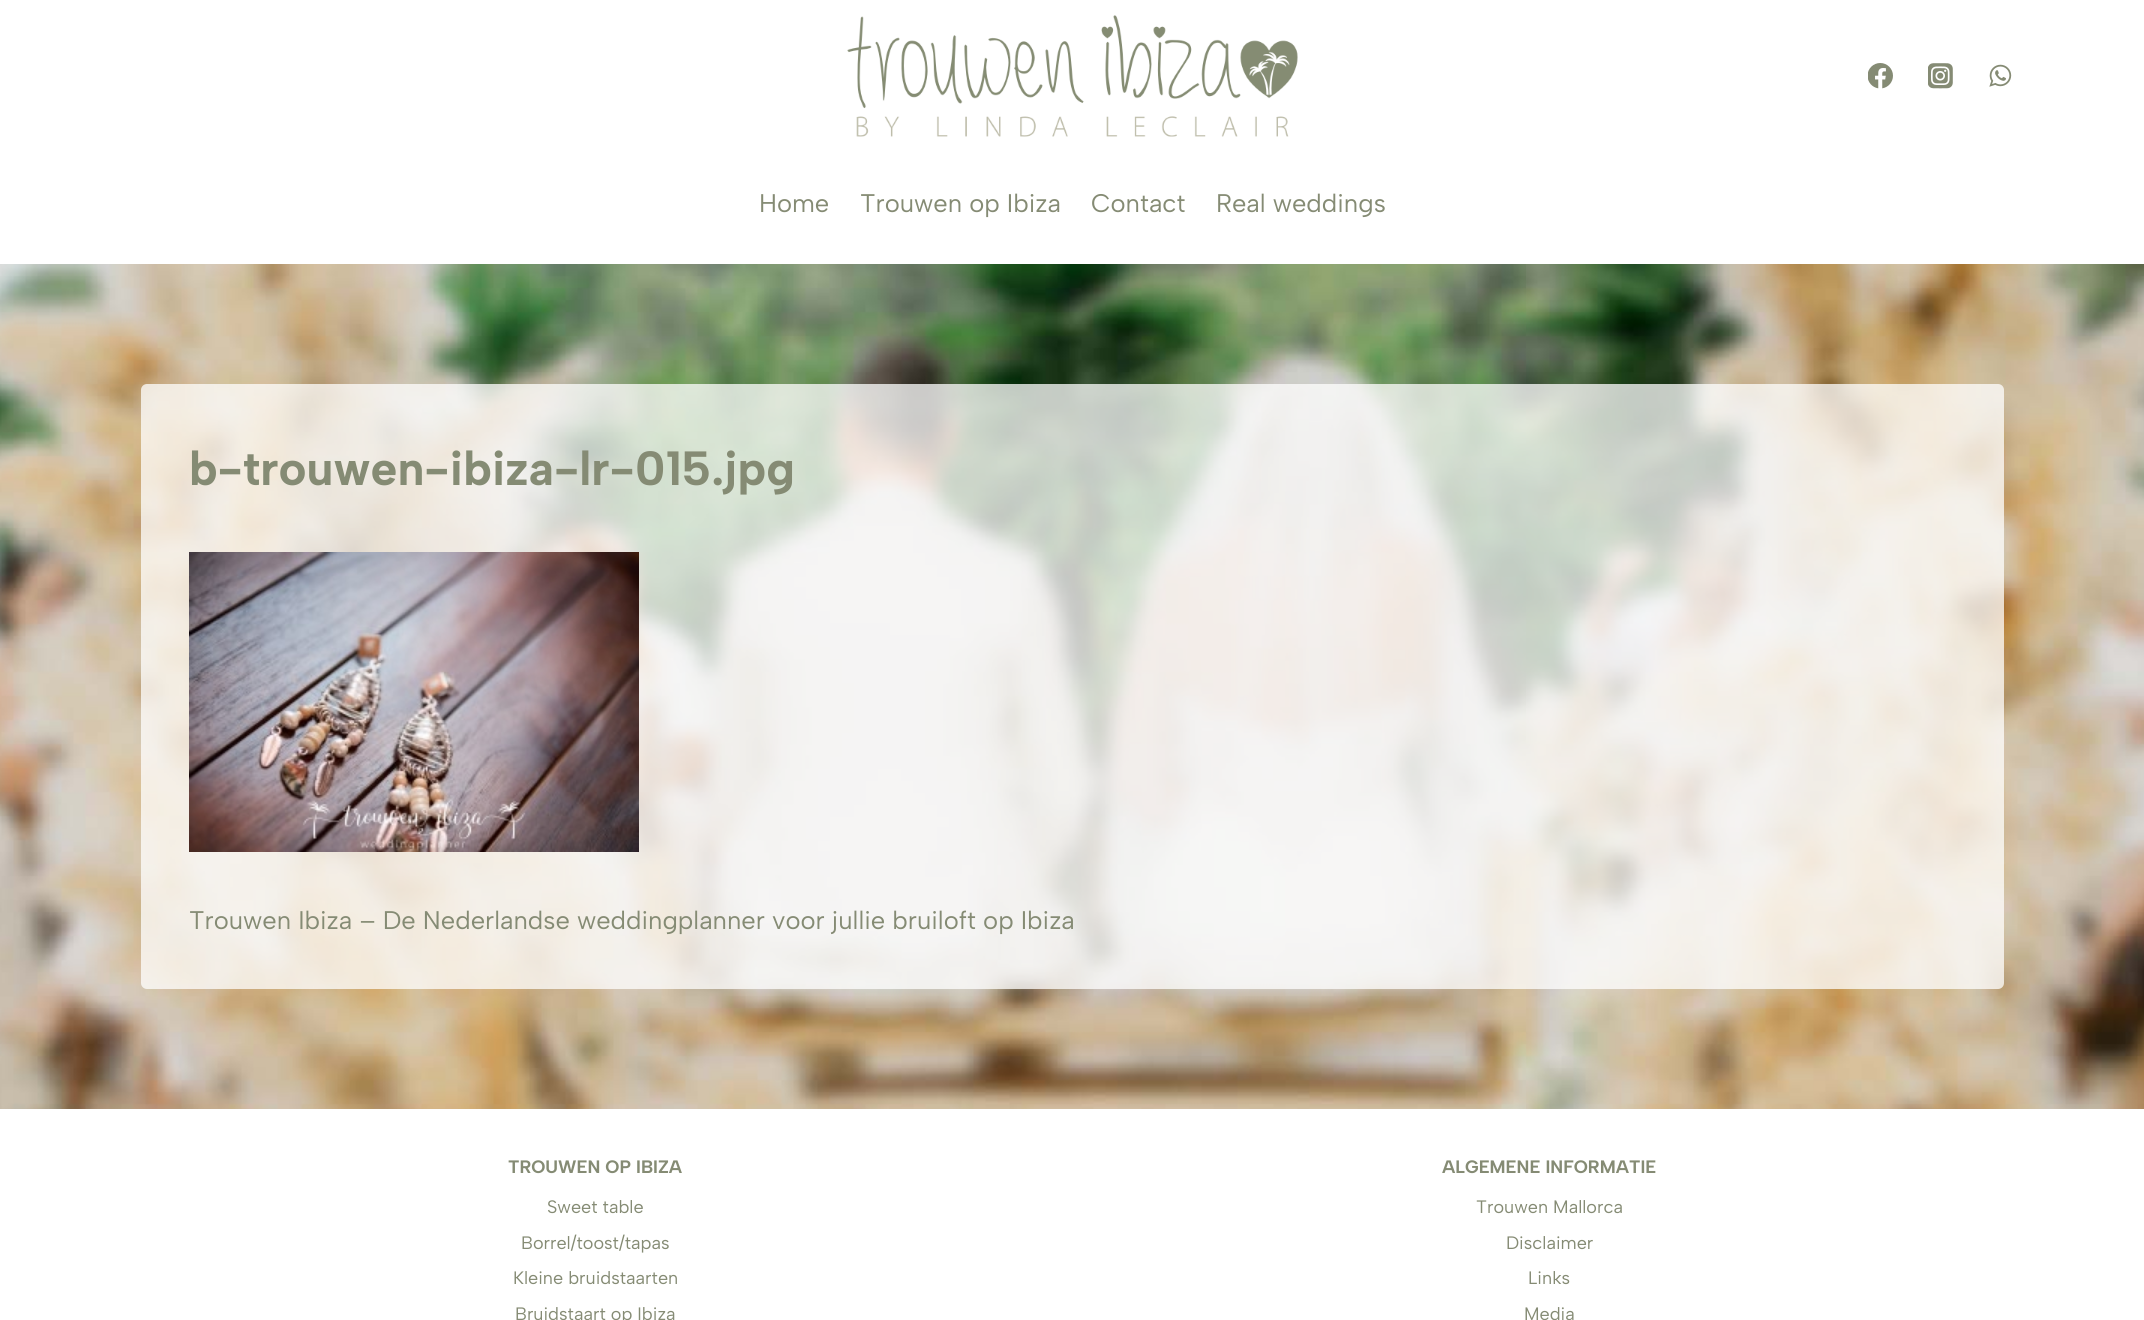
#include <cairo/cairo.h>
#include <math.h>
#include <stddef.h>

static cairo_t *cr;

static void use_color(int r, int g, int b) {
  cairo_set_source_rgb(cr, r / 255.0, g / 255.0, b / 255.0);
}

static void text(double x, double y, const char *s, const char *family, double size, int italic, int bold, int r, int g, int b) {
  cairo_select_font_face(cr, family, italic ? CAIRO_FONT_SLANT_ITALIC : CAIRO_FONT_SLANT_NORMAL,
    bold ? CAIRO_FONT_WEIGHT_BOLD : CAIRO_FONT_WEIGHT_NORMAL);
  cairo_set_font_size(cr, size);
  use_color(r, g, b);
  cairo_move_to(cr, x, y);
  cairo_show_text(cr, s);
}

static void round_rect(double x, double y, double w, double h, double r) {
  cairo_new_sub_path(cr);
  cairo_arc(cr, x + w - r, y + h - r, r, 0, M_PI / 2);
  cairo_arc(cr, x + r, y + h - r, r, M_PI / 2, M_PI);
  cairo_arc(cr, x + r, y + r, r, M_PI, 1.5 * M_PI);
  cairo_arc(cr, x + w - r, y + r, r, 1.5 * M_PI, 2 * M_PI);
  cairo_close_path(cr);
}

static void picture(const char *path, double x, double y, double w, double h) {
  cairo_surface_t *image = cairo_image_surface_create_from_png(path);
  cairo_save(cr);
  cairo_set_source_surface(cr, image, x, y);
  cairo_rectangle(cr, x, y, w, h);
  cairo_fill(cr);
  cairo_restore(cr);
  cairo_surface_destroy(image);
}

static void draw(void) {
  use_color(255, 255, 255);
  cairo_paint(cr);
  picture("img_01.png", 0, 264, 2144, 845);
  picture("img_02.png", 847, 15, 451, 122);
  picture("img_03.png", 1868, 63, 25, 26);
  picture("img_04.png", 1928, 63, 25, 26);
  picture("img_05.png", 1989, 64, 23, 23);
  cairo_set_source_rgba(cr, 1, 1, 1, 0.75);
  round_rect(141, 384, 1863, 605, 6);
  cairo_fill(cr);
  picture("img_06.png", 189, 552, 450, 300);
  text(759, 212, "Home", "Albert Sans", 25.5, 0, 0, 133, 139, 116);
  text(860, 212, "Trouwen op Ibiza", "Albert Sans", 25.5, 0, 0, 133, 139, 116);
  text(1091, 212, "Contact", "Albert Sans", 25.5, 0, 0, 133, 139, 116);
  text(1216, 212, "Real weddings", "Albert Sans", 25.5, 0, 0, 133, 139, 116);
  text(189, 485, "b-trouwen-ibiza-lr-015.jpg", "Albert Sans", 48, 0, 1, 133, 139, 116);
  text(189, 929, "Trouwen Ibiza – De Nederlandse weddingplanner voor jullie bruiloft op Ibiza", "Albert Sans", 25.5, 0, 0, 133, 139, 116);
  text(508, 1173, "TROUWEN OP IBIZA", "Albert Sans", 18, 0, 1, 133, 139, 116);
  text(547, 1213, "Sweet table", "Albert Sans", 18, 0, 0, 133, 139, 116);
  text(521, 1249, "Borrel/toost/tapas", "Albert Sans", 18, 0, 0, 133, 139, 116);
  text(513, 1284, "Kleine bruidstaarten", "Albert Sans", 18, 0, 0, 133, 139, 116);
  text(515, 1320, "Bruidstaart op Ibiza", "Albert Sans", 18, 0, 0, 133, 139, 116);
  text(1442, 1173, "ALGEMENE INFORMATIE", "Albert Sans", 18, 0, 1, 133, 139, 116);
  text(1476, 1213, "Trouwen Mallorca", "Albert Sans", 18, 0, 0, 133, 139, 116);
  text(1506, 1249, "Disclaimer", "Albert Sans", 18, 0, 0, 133, 139, 116);
  text(1528, 1284, "Links", "Albert Sans", 18, 0, 0, 133, 139, 116);
  text(1524, 1320, "Media", "Albert Sans", 18, 0, 0, 133, 139, 116);
}

int main(void) {
  cairo_surface_t *surface = cairo_image_surface_create(CAIRO_FORMAT_RGB24, 2144, 1320);
  cr = cairo_create(surface);
  cairo_font_options_t *options = cairo_font_options_create();
  cairo_font_options_set_hint_metrics(options, CAIRO_HINT_METRICS_OFF);
  cairo_font_options_set_hint_style(options, CAIRO_HINT_STYLE_NONE);
  cairo_set_font_options(cr, options);
  cairo_set_miter_limit(cr, 4);
  draw();
  cairo_surface_write_to_png(surface, "out.png");
  cairo_font_options_destroy(options);
  cairo_destroy(cr);
  cairo_surface_destroy(surface);
  return 0;
}
